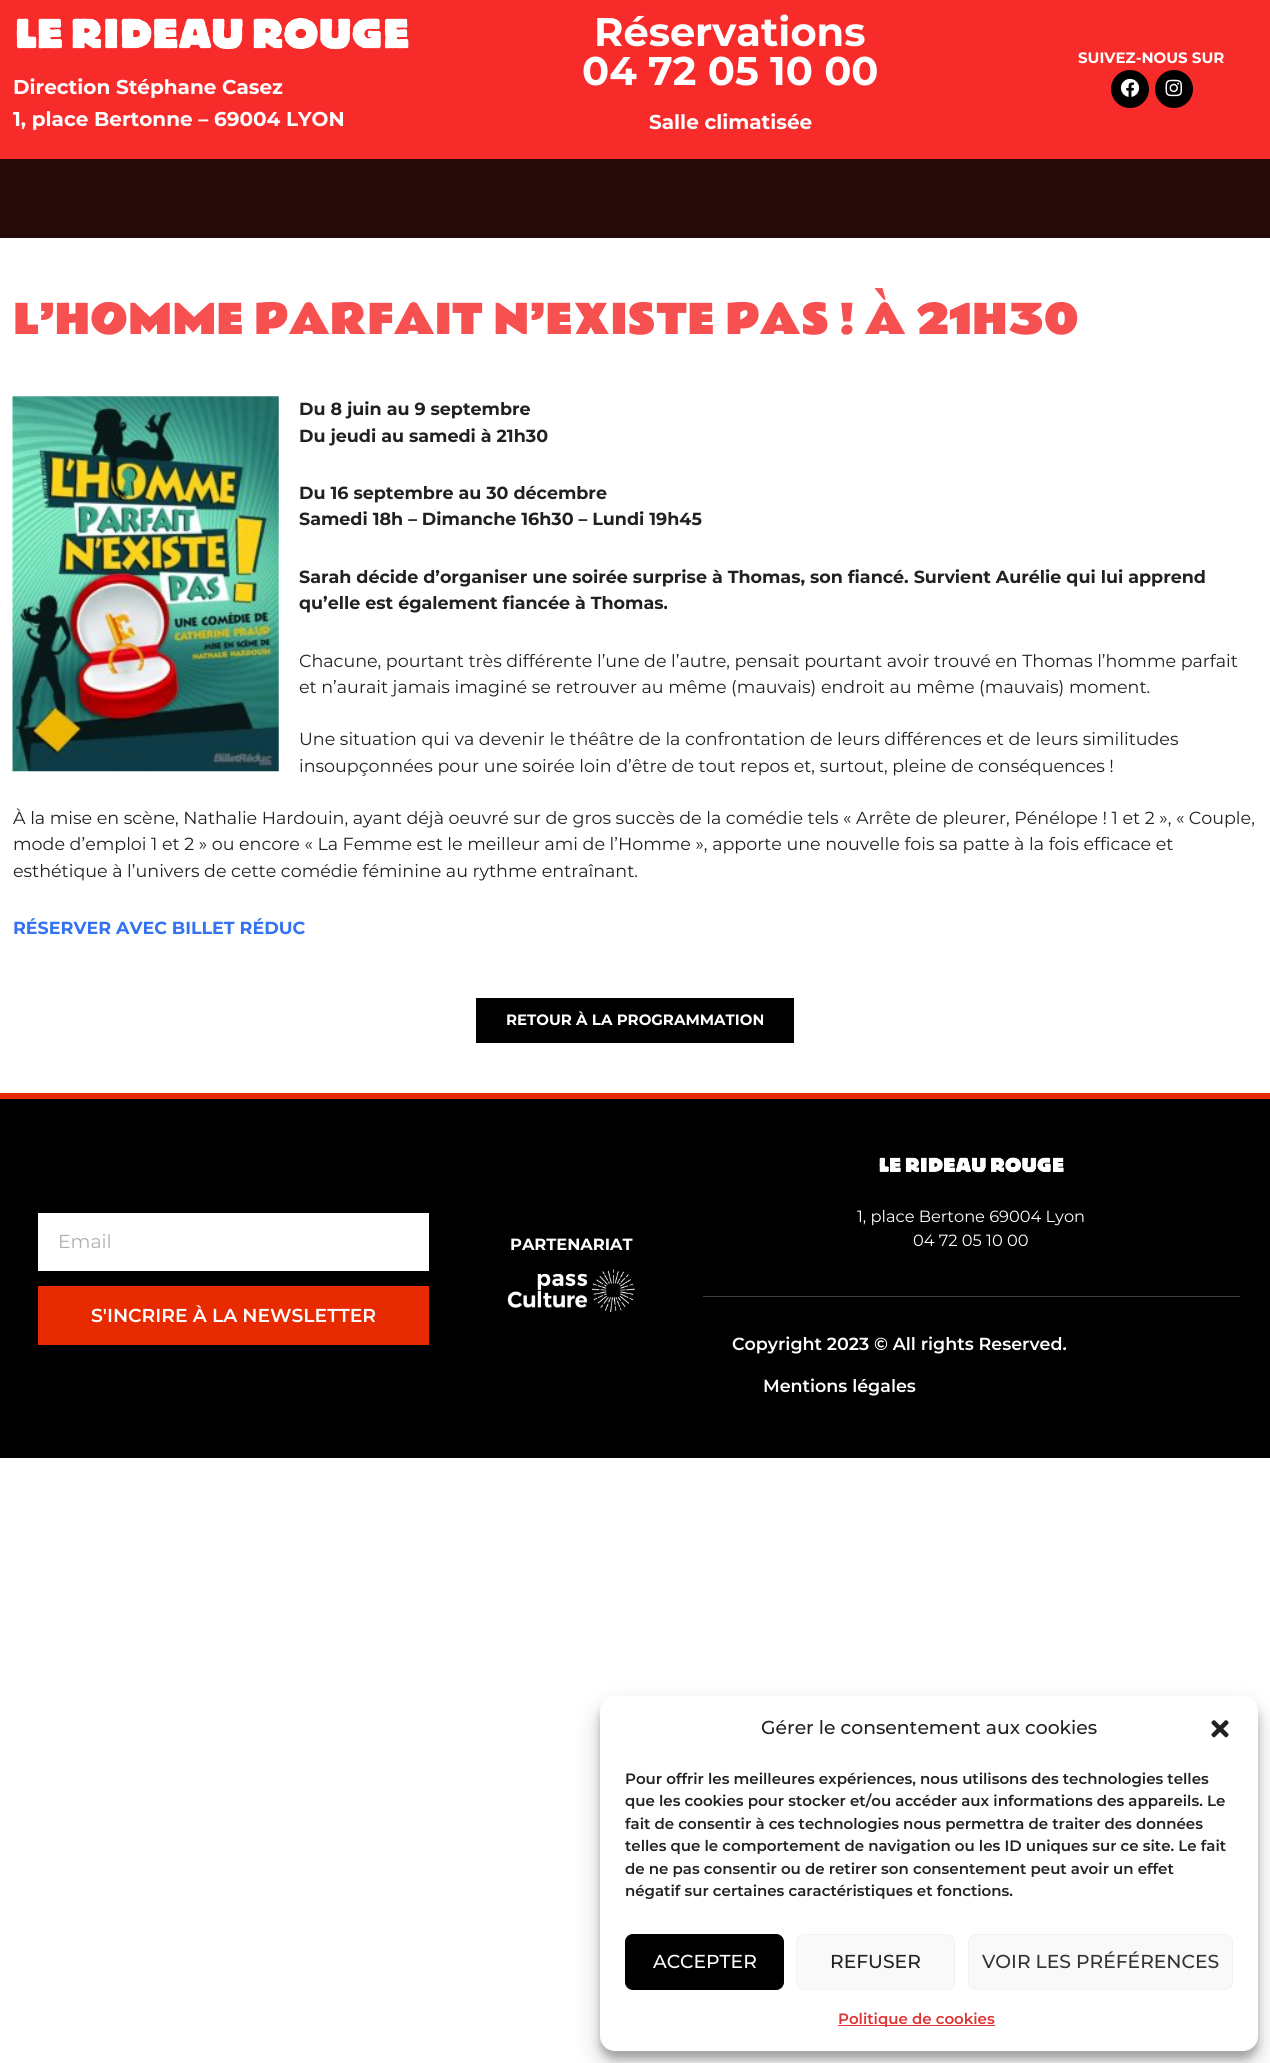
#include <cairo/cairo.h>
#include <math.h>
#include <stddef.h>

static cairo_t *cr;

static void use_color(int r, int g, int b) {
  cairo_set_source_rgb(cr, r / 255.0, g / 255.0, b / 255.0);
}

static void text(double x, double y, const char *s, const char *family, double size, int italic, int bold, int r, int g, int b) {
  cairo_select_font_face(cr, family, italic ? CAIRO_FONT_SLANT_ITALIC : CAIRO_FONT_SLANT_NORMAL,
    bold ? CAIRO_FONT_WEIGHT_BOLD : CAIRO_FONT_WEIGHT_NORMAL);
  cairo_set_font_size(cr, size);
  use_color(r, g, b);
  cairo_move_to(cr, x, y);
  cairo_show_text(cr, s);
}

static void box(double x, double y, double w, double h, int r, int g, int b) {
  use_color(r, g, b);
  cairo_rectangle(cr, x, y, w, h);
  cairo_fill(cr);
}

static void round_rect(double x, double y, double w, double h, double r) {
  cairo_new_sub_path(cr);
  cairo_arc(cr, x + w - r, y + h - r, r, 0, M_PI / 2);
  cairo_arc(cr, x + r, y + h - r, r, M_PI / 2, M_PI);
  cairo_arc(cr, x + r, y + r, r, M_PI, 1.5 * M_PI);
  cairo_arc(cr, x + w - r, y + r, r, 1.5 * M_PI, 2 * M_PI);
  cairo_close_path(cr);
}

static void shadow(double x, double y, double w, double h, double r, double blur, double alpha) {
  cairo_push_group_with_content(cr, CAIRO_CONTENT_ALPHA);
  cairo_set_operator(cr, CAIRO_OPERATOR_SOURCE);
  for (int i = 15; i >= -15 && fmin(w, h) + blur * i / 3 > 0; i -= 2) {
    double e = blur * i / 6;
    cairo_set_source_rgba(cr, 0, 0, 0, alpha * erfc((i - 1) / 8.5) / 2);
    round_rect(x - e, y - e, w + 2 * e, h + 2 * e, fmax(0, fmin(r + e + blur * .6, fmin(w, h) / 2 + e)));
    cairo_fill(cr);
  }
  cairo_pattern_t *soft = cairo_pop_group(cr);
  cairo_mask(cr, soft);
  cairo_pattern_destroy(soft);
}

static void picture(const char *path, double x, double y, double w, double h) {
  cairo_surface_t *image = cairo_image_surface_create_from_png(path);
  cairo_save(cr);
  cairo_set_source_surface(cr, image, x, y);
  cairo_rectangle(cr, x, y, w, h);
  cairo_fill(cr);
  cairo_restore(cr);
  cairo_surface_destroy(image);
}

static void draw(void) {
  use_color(255, 255, 255);
  cairo_paint(cr);
  box(0, 0, 1270, 159, 248, 43, 43);
  use_color(0, 0, 0);
  cairo_arc(cr, 1130, 89, 19, 0, 2 * M_PI);
  cairo_fill(cr);
  picture("img_01.png", 1120, 78, 20, 19);
  cairo_arc(cr, 1174, 89, 19, 0, 2 * M_PI);
  cairo_fill(cr);
  picture("img_02.png", 1165, 79, 17, 18);
  picture("img_03.png", 16, 17, 393, 33);
  box(0, 159, 1270, 79, 39, 11, 11);
  picture("img_04.png", 12, 396, 267, 376);
  box(476, 998, 318, 45, 0, 0, 0);
  box(0, 1099, 1270, 359, 0, 0, 0);
  box(0, 1093, 1270, 6, 232, 42, 0);
  box(38, 1213, 391, 58, 255, 255, 255);
  box(38, 1286, 391, 59, 232, 42, 0);
  picture("img_05.png", 507, 1269, 128, 44);
  picture("img_06.png", 879, 1157, 185, 16);
  box(703, 1296, 537, 1, 64, 64, 64);
  use_color(0, 0, 0);
  shadow(600, 1704, 658, 355, 15, 4, 0.23);
  shadow(600, 1709, 658, 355, 15, 12.5, 0.19);
  use_color(255, 255, 255);
  round_rect(600, 1696, 658, 355, 15);
  cairo_fill(cr);
  picture("img_07.png", 1211, 1720, 18, 18);
  use_color(0, 0, 0);
  round_rect(625.5, 1934.5, 158, 55, 7.5);
  cairo_fill_preserve(cr);
  cairo_set_line_width(cr, 1);
  cairo_stroke(cr);
  use_color(249, 249, 249);
  round_rect(796.5, 1934.5, 158, 55, 7.5);
  cairo_fill_preserve(cr);
  use_color(242, 242, 242);
  cairo_stroke(cr);
  use_color(249, 249, 249);
  round_rect(968.5, 1934.5, 264, 55, 7.5);
  cairo_fill_preserve(cr);
  use_color(242, 242, 242);
  cairo_stroke(cr);
  box(838, 2025, 157, 1, 221, 51, 51);
  text(594, 46, "Réservations", "Montserrat", 40, 0, 1, 255, 255, 255);
  text(582, 85, "04 72 05 10 00", "Montserrat", 40, 0, 1, 255, 255, 255);
  text(649, 129, "Salle climatisée", "Montserrat", 20, 0, 1, 255, 255, 255);
  text(1078, 63, "SUIVEZ-NOUS SUR", "Montserrat", 15, 0, 1, 255, 255, 255);
  text(13, 94, "Direction Stéphane Casez", "Montserrat", 20, 0, 1, 255, 255, 255);
  text(13, 126, "1, place Bertonne – 69004 LYON", "Montserrat", 20, 0, 1, 255, 255, 255);
  text(13, 334, "L’HOMME PARFAIT N’EXISTE PAS ! À 21H30", "Rammetto One", 40, 0, 0, 246, 80, 80);
  text(299, 415, "Du 8 juin au 9 septembre", "Montserrat", 17.5, 0, 1, 33, 33, 33);
  text(299, 442, "Du jeudi au samedi à 21h30", "Montserrat", 17.5, 0, 1, 33, 33, 33);
  text(299, 499, "Du 16 septembre au 30 décembre", "Montserrat", 17.5, 0, 1, 33, 33, 33);
  text(299, 525, "Samedi 18h – Dimanche 16h30 – Lundi 19h45", "Montserrat", 17.5, 0, 1, 33, 33, 33);
  text(299, 583, "Sarah décide d’organiser une soirée surprise à Thomas, son fiancé. Survient Aurélie qui lui apprend", "Montserrat", 17.5, 0, 1, 33, 33, 33);
  text(299, 609, "qu’elle est également fiancée à Thomas.", "Montserrat", 17.5, 0, 1, 33, 33, 33);
  text(299, 667, "Chacune, pourtant très différente l’une de l’autre, pensait pourtant avoir trouvé en Thomas l’homme parfait", "Montserrat", 17.5, 0, 0, 33, 33, 33);
  text(299, 693, "et n’aurait jamais imaginé se retrouver au même (mauvais) endroit au même (mauvais) moment.", "Montserrat", 17.5, 0, 0, 33, 33, 33);
  text(299, 745, "Une situation qui va devenir le théâtre de la confrontation de leurs différences et de leurs similitudes", "Montserrat", 17.5, 0, 0, 33, 33, 33);
  text(299, 772, "insoupçonnées pour une soirée loin d’être de tout repos et, surtout, pleine de conséquences !", "Montserrat", 17.5, 0, 0, 33, 33, 33);
  text(13, 824, "À la mise en scène, Nathalie Hardouin, ayant déjà oeuvré sur de gros succès de la comédie tels « Arrête de pleurer, Pénélope ! 1 et 2 », « Couple,", "Montserrat", 17.5, 0, 0, 33, 33, 33);
  text(13, 850, "mode d’emploi 1 et 2 » ou encore « La Femme est le meilleur ami de l’Homme », apporte une nouvelle fois sa patte à la fois efficace et", "Montserrat", 17.5, 0, 0, 33, 33, 33);
  text(13, 877, "esthétique à l’univers de cette comédie féminine au rythme entraînant.", "Montserrat", 17.5, 0, 0, 33, 33, 33);
  text(13, 934, "RÉSERVER AVEC BILLET RÉDUC", "Montserrat", 17.5, 0, 1, 51, 114, 240);
  text(506, 1025, "RETOUR À LA PROGRAMMATION", "Montserrat", 15, 0, 1, 255, 255, 255);
  text(58, 1248, "Email", "Montserrat", 18.75, 0, 0, 175, 175, 175);
  text(91, 1322, "S'INCRIRE À LA NEWSLETTER", "Montserrat SemiBold", 18.75, 0, 0, 255, 255, 255);
  text(510, 1250, "PARTENARIAT", "Montserrat", 16.25, 0, 1, 255, 255, 255);
  text(857, 1222, "1, place Bertone 69004 Lyon", "Montserrat", 16.25, 0, 0, 255, 255, 255);
  text(913, 1246, "04 72 05 10 00", "Montserrat", 16.25, 0, 0, 255, 255, 255);
  text(732, 1350, "Copyright 2023 © All rights Reserved.", "Montserrat SemiBold", 17.5, 0, 0, 255, 255, 255);
  text(763, 1392, "Mentions légales", "Montserrat SemiBold", 17.5, 0, 0, 255, 255, 255);
  text(761, 1734, "Gérer le consentement aux cookies", "Montserrat Medium", 18.75, 0, 0, 33, 33, 33);
  text(625, 1784, "Pour offrir les meilleures expériences, nous utilisons des technologies telles", "Montserrat SemiBold", 15, 0, 0, 33, 33, 33);
  text(625, 1806, "que les cookies pour stocker et/ou accéder aux informations des appareils. Le", "Montserrat SemiBold", 15, 0, 0, 33, 33, 33);
  text(625, 1829, "fait de consentir à ces technologies nous permettra de traiter des données", "Montserrat SemiBold", 15, 0, 0, 33, 33, 33);
  text(625, 1851, "telles que le comportement de navigation ou les ID uniques sur ce site. Le fait", "Montserrat SemiBold", 15, 0, 0, 33, 33, 33);
  text(625, 1874, "de ne pas consentir ou de retirer son consentement peut avoir un effet", "Montserrat SemiBold", 15, 0, 0, 33, 33, 33);
  text(625, 1896, "négatif sur certaines caractéristiques et fonctions.", "Montserrat SemiBold", 15, 0, 0, 33, 33, 33);
  text(653, 1968, "ACCEPTER", "Montserrat Medium", 18.75, 0, 0, 255, 255, 255);
  text(830, 1968, "REFUSER", "Montserrat Medium", 18.75, 0, 0, 33, 33, 33);
  text(982, 1968, "VOIR LES PRÉFÉRENCES", "Montserrat Medium", 18.75, 0, 0, 51, 51, 51);
  text(838, 2024, "Politique de cookies", "Montserrat SemiBold", 15, 0, 0, 221, 51, 51);
}

int main(void) {
  cairo_surface_t *surface = cairo_image_surface_create(CAIRO_FORMAT_RGB24, 1270, 2063);
  cr = cairo_create(surface);
  cairo_font_options_t *options = cairo_font_options_create();
  cairo_font_options_set_hint_metrics(options, CAIRO_HINT_METRICS_OFF);
  cairo_font_options_set_hint_style(options, CAIRO_HINT_STYLE_NONE);
  cairo_set_font_options(cr, options);
  cairo_set_miter_limit(cr, 4);
  draw();
  cairo_surface_write_to_png(surface, "out.png");
  cairo_font_options_destroy(options);
  cairo_destroy(cr);
  cairo_surface_destroy(surface);
  return 0;
}
